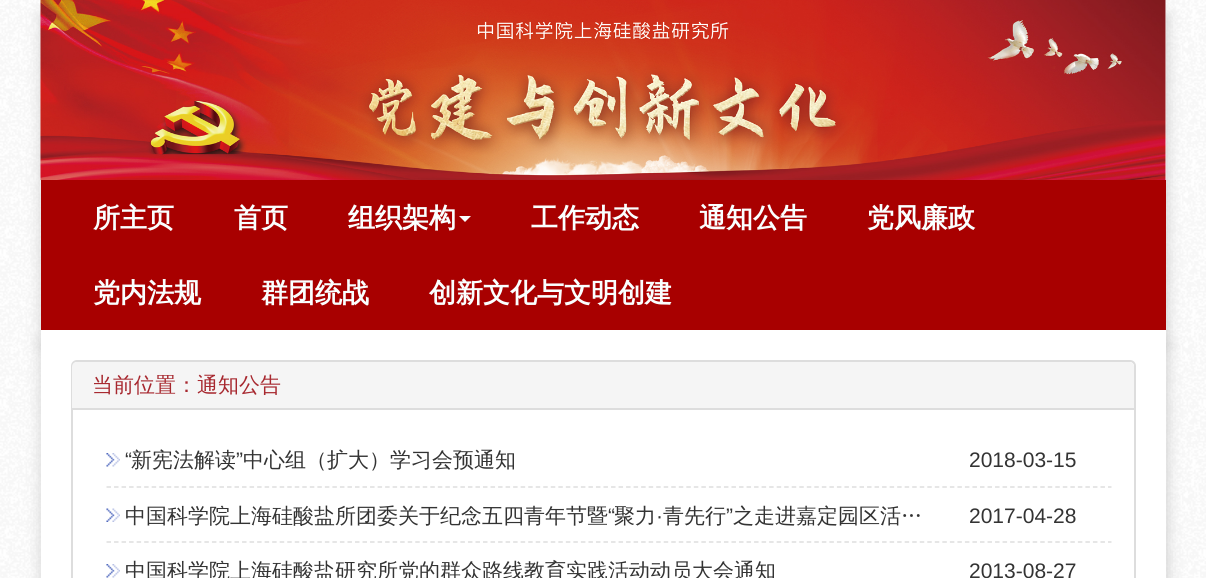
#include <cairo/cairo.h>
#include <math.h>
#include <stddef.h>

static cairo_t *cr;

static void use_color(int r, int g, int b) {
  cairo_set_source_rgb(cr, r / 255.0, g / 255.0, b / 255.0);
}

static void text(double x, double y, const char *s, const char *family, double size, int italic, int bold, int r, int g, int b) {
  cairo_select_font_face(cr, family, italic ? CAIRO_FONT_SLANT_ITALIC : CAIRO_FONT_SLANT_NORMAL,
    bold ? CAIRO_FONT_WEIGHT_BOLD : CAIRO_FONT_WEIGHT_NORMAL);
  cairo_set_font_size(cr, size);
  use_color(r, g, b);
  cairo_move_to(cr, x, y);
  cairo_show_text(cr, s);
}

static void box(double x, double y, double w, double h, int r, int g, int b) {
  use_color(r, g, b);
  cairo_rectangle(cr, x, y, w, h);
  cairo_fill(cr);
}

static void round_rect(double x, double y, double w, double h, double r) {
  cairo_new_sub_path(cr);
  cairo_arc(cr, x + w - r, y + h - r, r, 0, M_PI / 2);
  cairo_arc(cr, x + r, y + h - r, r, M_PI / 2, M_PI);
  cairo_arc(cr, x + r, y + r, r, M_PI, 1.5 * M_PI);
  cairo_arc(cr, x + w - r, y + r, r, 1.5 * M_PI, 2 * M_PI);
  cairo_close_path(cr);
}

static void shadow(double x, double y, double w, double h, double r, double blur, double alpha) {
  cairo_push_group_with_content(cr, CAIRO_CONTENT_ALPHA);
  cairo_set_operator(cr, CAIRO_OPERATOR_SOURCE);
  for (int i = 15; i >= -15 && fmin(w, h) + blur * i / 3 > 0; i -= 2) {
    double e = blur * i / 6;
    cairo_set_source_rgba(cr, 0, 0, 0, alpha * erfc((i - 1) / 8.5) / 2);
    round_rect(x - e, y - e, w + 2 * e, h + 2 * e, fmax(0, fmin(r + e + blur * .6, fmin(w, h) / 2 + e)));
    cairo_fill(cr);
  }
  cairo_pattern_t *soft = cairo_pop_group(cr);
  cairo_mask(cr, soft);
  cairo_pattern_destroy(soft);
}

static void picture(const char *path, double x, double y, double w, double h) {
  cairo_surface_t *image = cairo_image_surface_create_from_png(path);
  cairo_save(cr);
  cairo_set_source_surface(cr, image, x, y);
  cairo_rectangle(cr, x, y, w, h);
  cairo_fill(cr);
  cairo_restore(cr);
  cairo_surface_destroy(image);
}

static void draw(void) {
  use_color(255, 255, 255);
  cairo_paint(cr);
  picture("img_01.png", 0, 0, 1206, 578);
  use_color(204, 204, 204);
  shadow(42, 15, 1125, 330, 0, 7.5, 1);
  box(1165, 0, 1, 180, 255, 255, 255);
  picture("img_02.png", 40, 0, 1126, 180);
  use_color(204, 204, 204);
  shadow(42, 345, 1125, 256, 0, 7.5, 1);
  box(41, 180, 1125, 150, 168, 0, 0);
  use_color(250, 255, 255);
  cairo_new_path(cr);
  cairo_move_to(cr, 459, 216);
  cairo_line_to(cr, 471, 216);
  cairo_line_to(cr, 465, 222);
  cairo_close_path(cr);
  cairo_fill(cr);
  box(41, 330, 1125, 248, 255, 255, 255);
  round_rect(72, 361, 1063, 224, 5);
  use_color(221, 221, 221);
  cairo_stroke(cr);
  use_color(245, 245, 245);
  cairo_new_path(cr);
  cairo_move_to(cr, 77, 362);
  cairo_line_to(cr, 1129, 362);
  cairo_curve_to(cr, 1132, 362, 1134, 364, 1134, 367);
  cairo_line_to(cr, 1134, 410);
  cairo_line_to(cr, 72, 410);
  cairo_line_to(cr, 72, 367);
  cairo_curve_to(cr, 72, 364, 74, 362, 77, 362);
  cairo_close_path(cr);
  cairo_fill(cr);
  box(72, 408, 1062, 2, 221, 221, 221);
  picture("img_03.png", 106, 453, 14, 14);
  cairo_new_path(cr);
  cairo_move_to(cr, 106.5, 487);
  cairo_line_to(cr, 1111.5, 487);
  use_color(222, 222, 222);
  cairo_set_line_width(cr, 1.5);
  cairo_set_dash(cr, (double[]){4.5, 3.03}, 2, 0);
  cairo_stroke(cr);
  picture("img_04.png", 106, 508, 14, 14);
  cairo_new_path(cr);
  cairo_move_to(cr, 106.5, 542);
  cairo_line_to(cr, 1111.5, 542);
  cairo_stroke(cr);
  picture("img_03.png", 106, 564, 14, 14);
  text(93, 227, "所主页", "WenQuanYi Zen Hei", 27, 0, 1, 250, 255, 255);
  text(234, 227, "首页", "WenQuanYi Zen Hei", 27, 0, 1, 250, 255, 255);
  text(348, 227, "组织架构", "WenQuanYi Zen Hei", 27, 0, 1, 250, 255, 255);
  text(531, 227, "工作动态", "WenQuanYi Zen Hei", 27, 0, 1, 250, 255, 255);
  text(699, 227, "通知公告", "WenQuanYi Zen Hei", 27, 0, 1, 250, 255, 255);
  text(867, 227, "党风廉政", "WenQuanYi Zen Hei", 27, 0, 1, 250, 255, 255);
  text(93, 302, "党内法规", "WenQuanYi Zen Hei", 27, 0, 1, 250, 255, 255);
  text(261, 302, "群团统战", "WenQuanYi Zen Hei", 27, 0, 1, 250, 255, 255);
  text(429, 302, "创新文化与文明创建", "WenQuanYi Zen Hei", 27, 0, 1, 250, 255, 255);
  text(92, 392, "当前位置：通知公告", "WenQuanYi Zen Hei Medium", 21, 0, 0, 167, 40, 47);
  text(125, 467, "“", "Liberation Sans", 21, 0, 0, 51, 51, 51);
  text(131, 467, "新宪法解读", "WenQuanYi Zen Hei Medium", 21, 0, 0, 51, 51, 51);
  text(236, 467, "”", "Liberation Sans", 21, 0, 0, 51, 51, 51);
  text(243, 467, "中心组（扩大）学习会预通知", "WenQuanYi Zen Hei Medium", 21, 0, 0, 51, 51, 51);
  text(969, 467, "2018-03-15", "Liberation Sans", 21, 0, 0, 51, 51, 51);
  text(125, 523, "中国科学院上海硅酸盐所团委关于纪念五四青年节暨", "WenQuanYi Zen Hei Medium", 21, 0, 0, 51, 51, 51);
  text(608, 523, "“", "Liberation Sans", 21, 0, 0, 51, 51, 51);
  text(614, 523, "聚力", "WenQuanYi Zen Hei Medium", 21, 0, 0, 51, 51, 51);
  text(663, 523, "青先行", "WenQuanYi Zen Hei Medium", 21, 0, 0, 51, 51, 51);
  text(726, 523, "”", "Liberation Sans", 21, 0, 0, 51, 51, 51);
  text(733, 523, "之走进嘉定园区活…", "WenQuanYi Zen Hei Medium", 21, 0, 0, 51, 51, 51);
  text(656, 523, "·", "Liberation Sans", 21, 0, 0, 51, 51, 51);
  text(969, 523, "2017-04-28", "Liberation Sans", 21, 0, 0, 51, 51, 51);
  text(125, 578, "中国科学院上海硅酸盐研究所党的群众路线教育实践活动动员大会通知", "WenQuanYi Zen Hei Medium", 21, 0, 0, 51, 51, 51);
  text(969, 578, "2013-08-27", "Liberation Sans", 21, 0, 0, 51, 51, 51);
}

int main(void) {
  cairo_surface_t *surface = cairo_image_surface_create(CAIRO_FORMAT_RGB24, 1206, 578);
  cr = cairo_create(surface);
  cairo_font_options_t *options = cairo_font_options_create();
  cairo_font_options_set_hint_metrics(options, CAIRO_HINT_METRICS_OFF);
  cairo_font_options_set_hint_style(options, CAIRO_HINT_STYLE_NONE);
  cairo_set_font_options(cr, options);
  cairo_set_miter_limit(cr, 4);
  draw();
  cairo_surface_write_to_png(surface, "out.png");
  cairo_font_options_destroy(options);
  cairo_destroy(cr);
  cairo_surface_destroy(surface);
  return 0;
}
